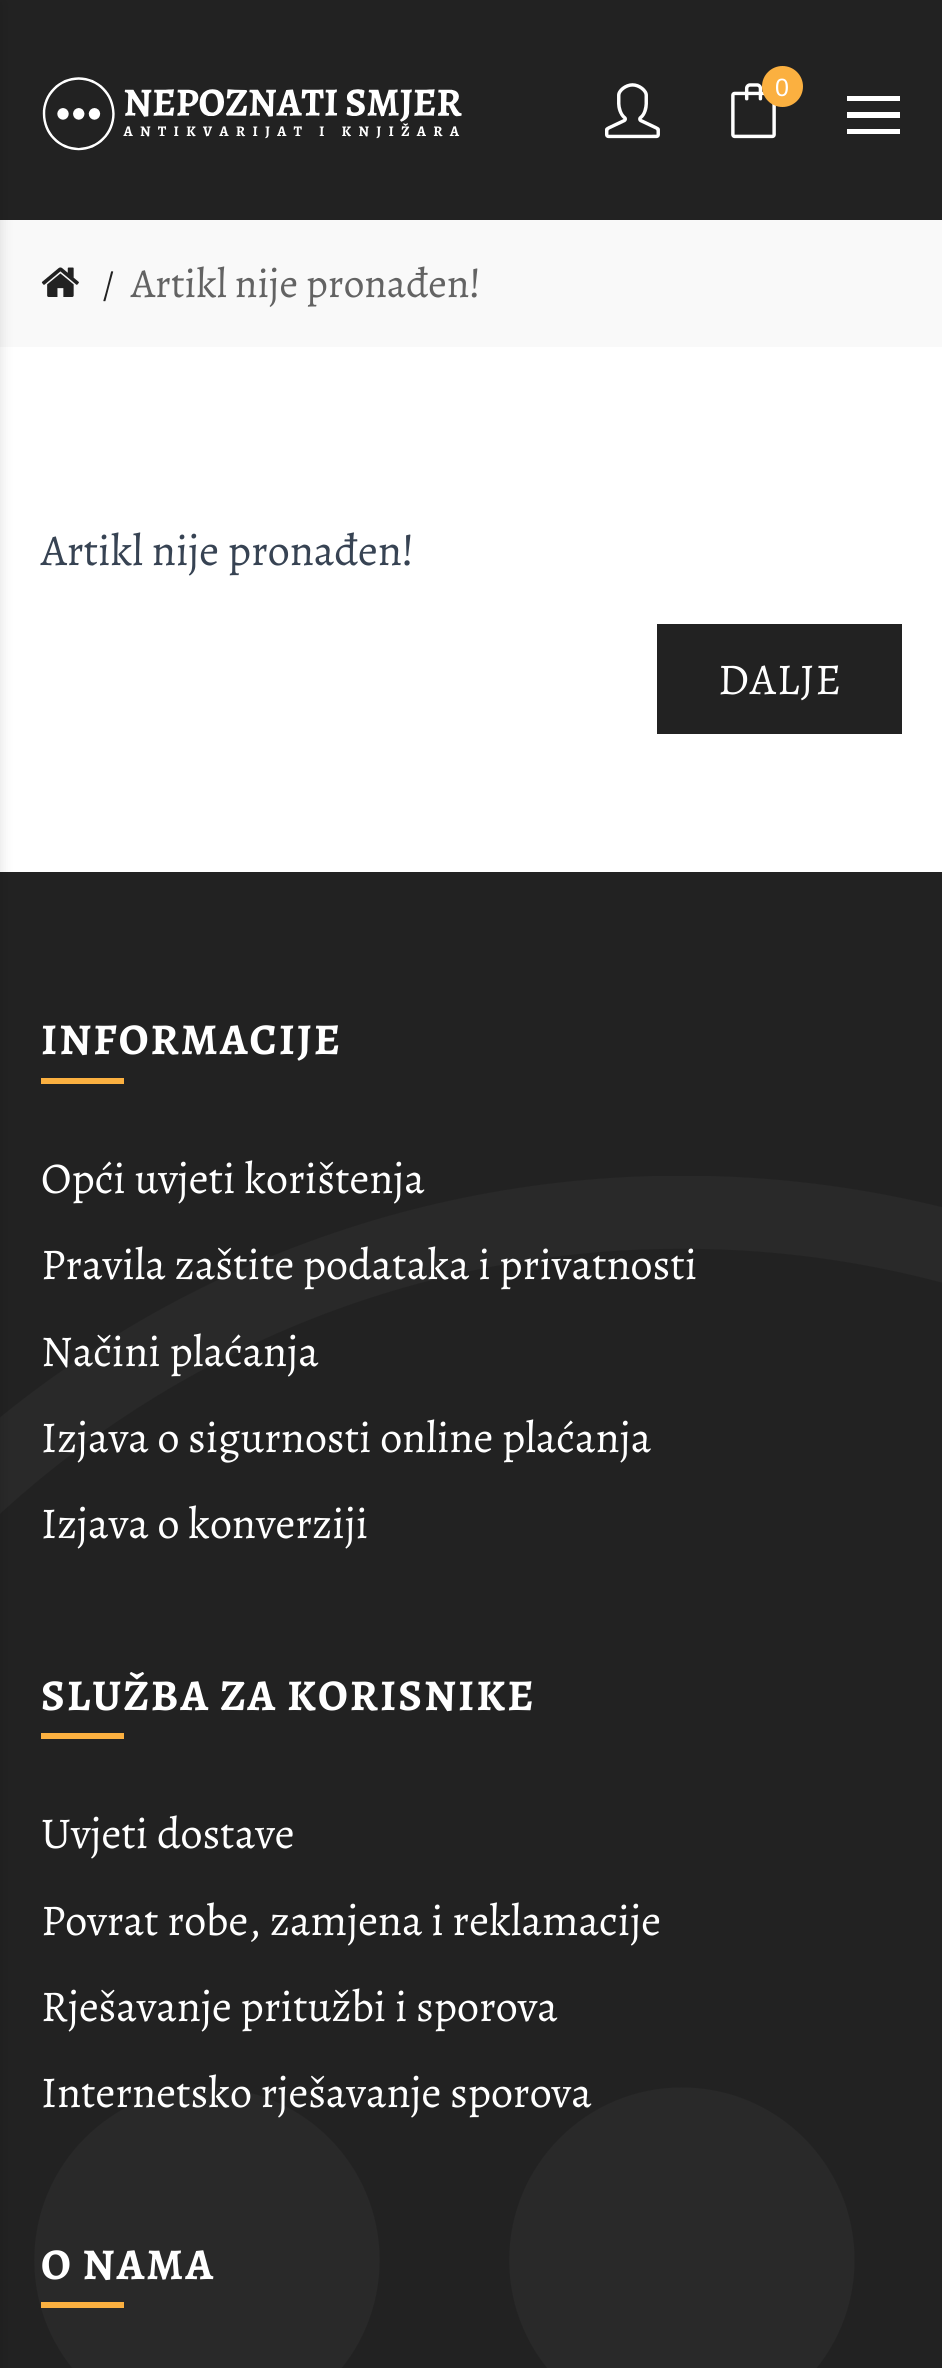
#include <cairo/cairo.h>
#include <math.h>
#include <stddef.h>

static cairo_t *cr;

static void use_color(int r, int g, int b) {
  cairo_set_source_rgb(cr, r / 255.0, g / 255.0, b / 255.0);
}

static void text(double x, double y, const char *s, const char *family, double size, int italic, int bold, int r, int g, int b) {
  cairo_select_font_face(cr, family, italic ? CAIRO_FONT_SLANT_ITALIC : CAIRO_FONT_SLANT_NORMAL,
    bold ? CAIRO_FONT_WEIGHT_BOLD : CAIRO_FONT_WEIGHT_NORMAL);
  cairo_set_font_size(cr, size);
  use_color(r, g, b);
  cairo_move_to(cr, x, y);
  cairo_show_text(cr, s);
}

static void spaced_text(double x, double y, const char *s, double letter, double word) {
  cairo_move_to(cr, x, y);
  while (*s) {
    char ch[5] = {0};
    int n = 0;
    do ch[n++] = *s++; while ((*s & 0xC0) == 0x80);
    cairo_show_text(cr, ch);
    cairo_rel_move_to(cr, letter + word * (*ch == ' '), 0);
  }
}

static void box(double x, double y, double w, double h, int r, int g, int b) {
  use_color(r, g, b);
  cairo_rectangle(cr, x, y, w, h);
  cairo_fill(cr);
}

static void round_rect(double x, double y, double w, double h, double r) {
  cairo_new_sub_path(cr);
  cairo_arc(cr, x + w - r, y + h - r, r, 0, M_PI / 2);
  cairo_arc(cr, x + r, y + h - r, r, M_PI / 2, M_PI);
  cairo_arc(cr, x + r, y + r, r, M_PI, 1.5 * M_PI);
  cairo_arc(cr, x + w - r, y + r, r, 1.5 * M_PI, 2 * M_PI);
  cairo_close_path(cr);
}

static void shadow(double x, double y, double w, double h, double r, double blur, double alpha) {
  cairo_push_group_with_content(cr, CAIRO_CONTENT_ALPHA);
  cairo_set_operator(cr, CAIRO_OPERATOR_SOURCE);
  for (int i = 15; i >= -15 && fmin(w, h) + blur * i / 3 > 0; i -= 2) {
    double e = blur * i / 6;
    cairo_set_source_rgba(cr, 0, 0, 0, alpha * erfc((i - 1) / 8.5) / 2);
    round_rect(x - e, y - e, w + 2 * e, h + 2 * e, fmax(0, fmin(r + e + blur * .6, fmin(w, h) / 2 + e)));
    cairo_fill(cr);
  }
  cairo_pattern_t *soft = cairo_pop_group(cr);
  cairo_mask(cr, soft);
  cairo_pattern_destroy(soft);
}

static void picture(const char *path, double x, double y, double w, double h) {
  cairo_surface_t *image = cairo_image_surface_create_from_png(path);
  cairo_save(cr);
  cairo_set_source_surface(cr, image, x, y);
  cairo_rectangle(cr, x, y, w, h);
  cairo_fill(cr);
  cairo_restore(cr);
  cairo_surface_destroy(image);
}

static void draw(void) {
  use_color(255, 255, 255);
  cairo_paint(cr);
  box(0, 0, 942, 220, 34, 34, 34);
  box(0, 220, 942, 127, 249, 249, 249);
  box(0, 872, 942, 1496, 34, 34, 34);
  picture("img_05.png", 0, 1176, 942, 1192);
  use_color(0, 0, 0);
  shadow(-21, 3, 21, 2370, 0, 7, 0.13);
  picture("img_01.png", 42, 77, 420, 74);
  picture("img_02.png", 605, 83, 55, 56);
  picture("img_03.png", 731, 83, 45, 56);
  use_color(251, 176, 64);
  cairo_arc(cr, 782.5, 86.5, 20.5, 0, 2 * M_PI);
  cairo_fill(cr);
  use_color(255, 255, 255);
  cairo_new_path(cr);
  cairo_move_to(cr, 847, 98);
  cairo_line_to(cr, 847, 101);
  cairo_line_to(cr, 900, 101);
  cairo_line_to(cr, 900, 96);
  cairo_line_to(cr, 847, 96);
  cairo_close_path(cr);
  cairo_move_to(cr, 847, 115);
  cairo_line_to(cr, 847, 118);
  cairo_line_to(cr, 900, 118);
  cairo_line_to(cr, 900, 112);
  cairo_line_to(cr, 847, 112);
  cairo_close_path(cr);
  cairo_move_to(cr, 847, 131);
  cairo_line_to(cr, 847, 134);
  cairo_line_to(cr, 900, 134);
  cairo_line_to(cr, 900, 129);
  cairo_line_to(cr, 847, 129);
  cairo_close_path(cr);
  cairo_fill(cr);
  picture("img_04.png", 41, 267, 38, 30);
  box(657, 624, 245, 110, 34, 34, 34);
  box(41, 1078, 83, 6, 251, 176, 64);
  box(41, 1733, 83, 6, 251, 176, 64);
  box(41, 2302, 83, 6, 251, 176, 64);
  text(775, 96, "0", "Liberation Sans", 25, 0, 0, 255, 255, 255);
  text(102, 297, "/", "Alegreya", 38, 0, 0, 34, 34, 34);
  text(131, 297, "Artikl nije pronađen!", "Alegreya", 41.25, 0, 0, 99, 99, 99);
  text(41, 565, "Artikl nije pronađen!", "Alegreya", 44, 0, 0, 55, 67, 83);
  use_color(255, 255, 255);
  spaced_text(718, 694, "DALJE", 1, 0);
  cairo_select_font_face(cr, "Alegreya", CAIRO_FONT_SLANT_NORMAL, CAIRO_FONT_WEIGHT_BOLD);
  spaced_text(41, 1054, "INFORMACIJE", 2.1, 0);
  text(41, 1193, "Opći uvjeti korištenja", "Alegreya", 44, 0, 0, 255, 255, 255);
  text(41, 1279, "Pravila zaštite podataka i privatnosti", "Alegreya", 44, 0, 0, 255, 255, 255);
  text(41, 1366, "Načini plaćanja", "Alegreya", 44, 0, 0, 255, 255, 255);
  text(41, 1452, "Izjava o sigurnosti online plaćanja", "Alegreya", 44, 0, 0, 255, 255, 255);
  text(41, 1538, "Izjava o konverziji", "Alegreya", 44, 0, 0, 255, 255, 255);
  cairo_select_font_face(cr, "Alegreya", CAIRO_FONT_SLANT_NORMAL, CAIRO_FONT_WEIGHT_BOLD);
  spaced_text(41, 1710, "SLUŽBA ZA KORISNIKE", 2.1, 0);
  text(41, 1848, "Uvjeti dostave", "Alegreya", 44, 0, 0, 255, 255, 255);
  text(41, 1935, "Povrat robe, zamjena i reklamacije", "Alegreya", 44, 0, 0, 255, 255, 255);
  text(41, 2021, "Rješavanje pritužbi i sporova", "Alegreya", 44, 0, 0, 255, 255, 255);
  text(41, 2107, "Internetsko rješavanje sporova", "Alegreya", 44, 0, 0, 255, 255, 255);
  cairo_select_font_face(cr, "Alegreya", CAIRO_FONT_SLANT_NORMAL, CAIRO_FONT_WEIGHT_BOLD);
  spaced_text(41, 2279, "O NAMA", 2.1, 0);
}

int main(void) {
  cairo_surface_t *surface = cairo_image_surface_create(CAIRO_FORMAT_RGB24, 942, 2368);
  cr = cairo_create(surface);
  cairo_font_options_t *options = cairo_font_options_create();
  cairo_font_options_set_hint_metrics(options, CAIRO_HINT_METRICS_OFF);
  cairo_font_options_set_hint_style(options, CAIRO_HINT_STYLE_NONE);
  cairo_set_font_options(cr, options);
  cairo_set_miter_limit(cr, 4);
  draw();
  cairo_surface_write_to_png(surface, "out.png");
  cairo_font_options_destroy(options);
  cairo_destroy(cr);
  cairo_surface_destroy(surface);
  return 0;
}
